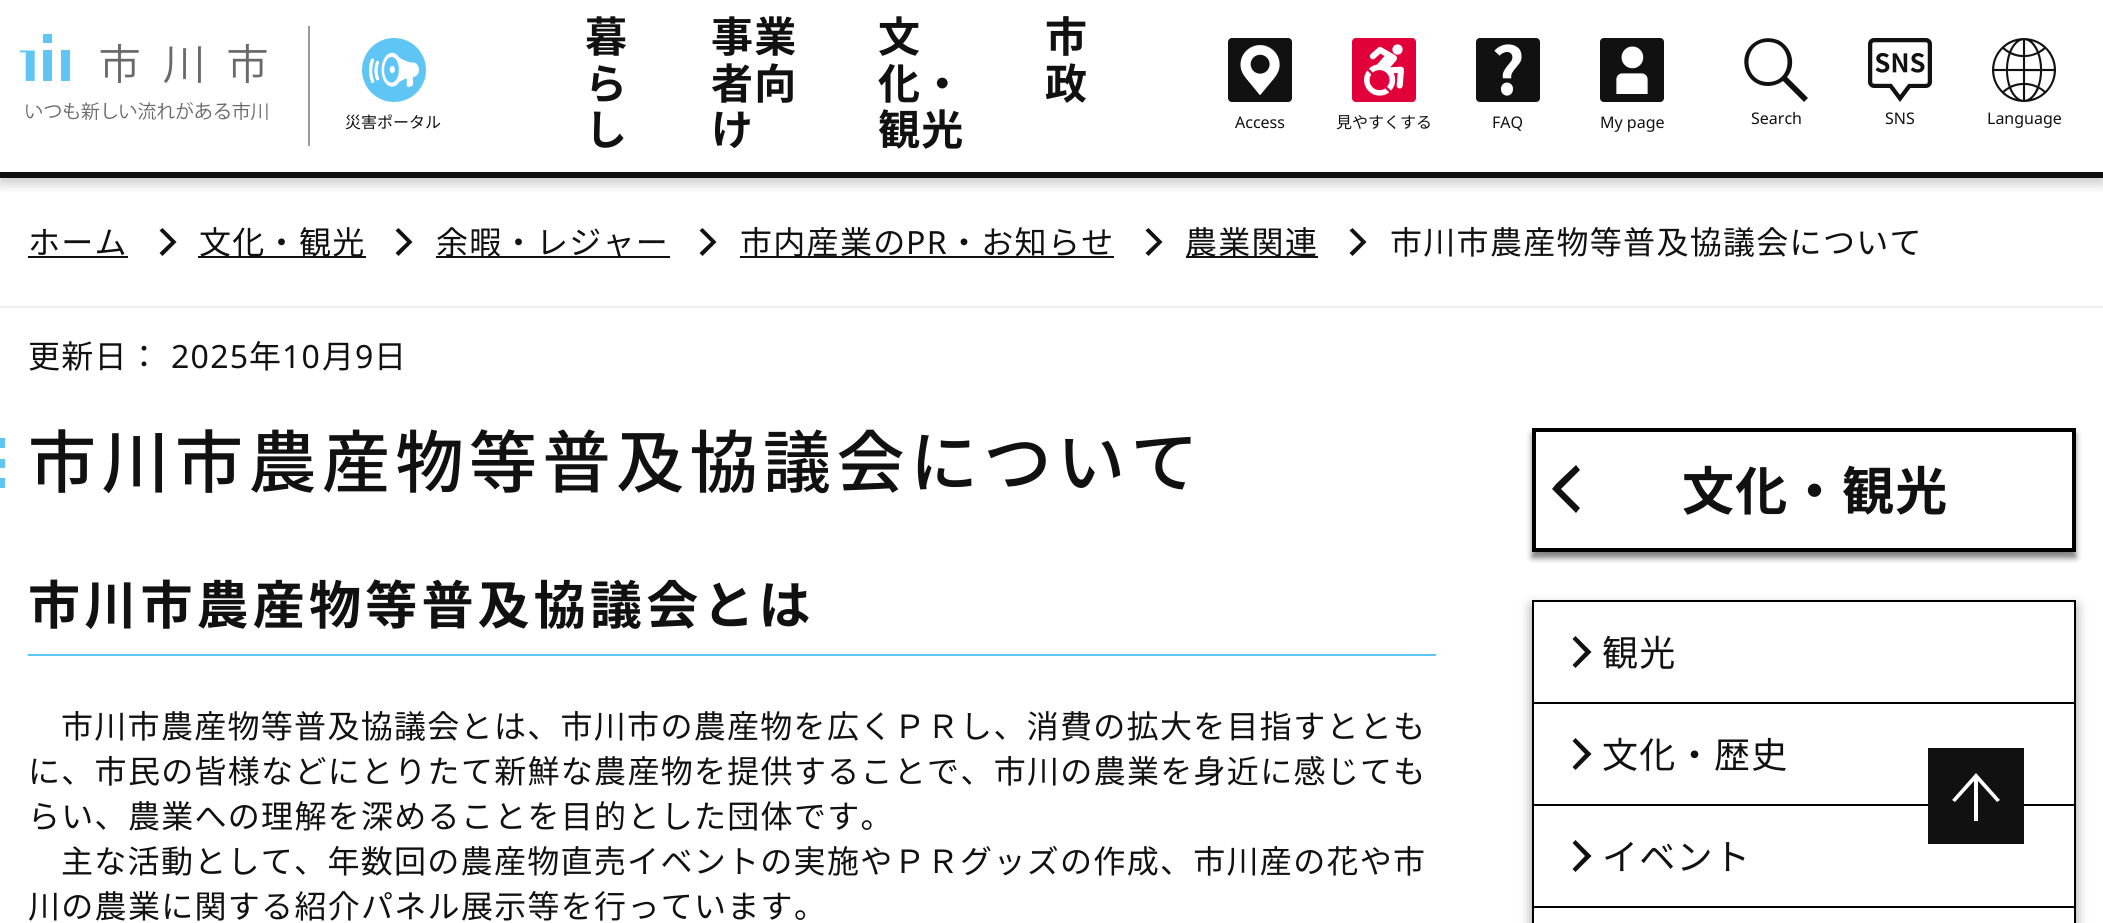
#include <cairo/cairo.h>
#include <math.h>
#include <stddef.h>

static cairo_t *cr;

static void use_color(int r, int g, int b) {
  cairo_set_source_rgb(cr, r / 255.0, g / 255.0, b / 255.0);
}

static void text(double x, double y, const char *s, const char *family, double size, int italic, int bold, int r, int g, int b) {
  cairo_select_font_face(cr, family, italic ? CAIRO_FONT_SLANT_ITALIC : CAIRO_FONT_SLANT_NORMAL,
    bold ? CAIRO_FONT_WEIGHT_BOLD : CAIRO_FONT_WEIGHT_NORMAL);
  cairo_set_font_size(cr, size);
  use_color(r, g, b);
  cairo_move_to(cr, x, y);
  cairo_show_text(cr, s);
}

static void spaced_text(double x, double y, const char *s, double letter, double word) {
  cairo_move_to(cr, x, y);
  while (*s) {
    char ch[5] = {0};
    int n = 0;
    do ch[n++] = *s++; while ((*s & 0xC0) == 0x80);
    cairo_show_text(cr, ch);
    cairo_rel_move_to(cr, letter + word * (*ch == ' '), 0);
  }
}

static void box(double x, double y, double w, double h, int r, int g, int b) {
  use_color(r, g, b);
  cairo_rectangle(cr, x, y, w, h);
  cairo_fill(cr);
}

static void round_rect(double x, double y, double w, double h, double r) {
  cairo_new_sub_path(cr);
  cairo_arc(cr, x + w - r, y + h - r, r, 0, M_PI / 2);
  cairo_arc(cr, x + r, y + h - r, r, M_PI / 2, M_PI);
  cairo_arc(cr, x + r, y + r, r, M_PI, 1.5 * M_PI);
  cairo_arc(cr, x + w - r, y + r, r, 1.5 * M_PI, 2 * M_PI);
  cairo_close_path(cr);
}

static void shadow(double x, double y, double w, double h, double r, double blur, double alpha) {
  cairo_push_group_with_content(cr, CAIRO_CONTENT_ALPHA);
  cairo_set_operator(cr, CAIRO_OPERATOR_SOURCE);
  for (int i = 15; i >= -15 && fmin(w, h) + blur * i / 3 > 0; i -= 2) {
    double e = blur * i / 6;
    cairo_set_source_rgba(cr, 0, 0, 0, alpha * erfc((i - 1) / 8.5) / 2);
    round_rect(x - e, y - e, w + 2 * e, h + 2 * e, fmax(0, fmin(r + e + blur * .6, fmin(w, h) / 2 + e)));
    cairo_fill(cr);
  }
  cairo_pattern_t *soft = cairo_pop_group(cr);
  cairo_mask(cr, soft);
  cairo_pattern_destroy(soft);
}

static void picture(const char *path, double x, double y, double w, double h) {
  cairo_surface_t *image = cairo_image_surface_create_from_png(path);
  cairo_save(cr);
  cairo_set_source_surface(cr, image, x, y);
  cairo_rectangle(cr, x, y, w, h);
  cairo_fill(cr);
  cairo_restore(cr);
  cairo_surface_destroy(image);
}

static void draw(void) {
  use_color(255, 255, 255);
  cairo_paint(cr);
  cairo_save(cr);
  cairo_rectangle(cr, 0, 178, 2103, 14);
  cairo_clip(cr);
  use_color(0, 0, 0);
  shadow(0, 6, 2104, 178, 0, 6, 0.2);
  cairo_restore(cr);
  box(0, 172, 2103, 6, 17, 17, 17);
  picture("img_01.png", 20, 34, 248, 86);
  picture("img_02.png", 1228, 38, 64, 64);
  picture("img_03.png", 1352, 38, 64, 64);
  picture("img_04.png", 1476, 38, 64, 64);
  picture("img_05.png", 1600, 38, 64, 64);
  cairo_new_path(cr);
  cairo_move_to(cr, 1808, 98);
  cairo_line_to(cr, 1787, 77);
  cairo_curve_to(cr, 1796, 66, 1793, 49, 1780, 41);
  cairo_curve_to(cr, 1774, 38, 1766, 37, 1759, 40);
  cairo_curve_to(cr, 1735, 50, 1742, 86, 1768, 86);
  cairo_curve_to(cr, 1773, 86, 1779, 84, 1783, 81);
  cairo_line_to(cr, 1804, 102);
  cairo_close_path(cr);
  cairo_move_to(cr, 1768, 82);
  cairo_curve_to(cr, 1742, 82, 1742, 42, 1768, 42);
  cairo_curve_to(cr, 1794, 42, 1794, 82, 1768, 82);
  cairo_close_path(cr);
  cairo_fill(cr);
  picture("img_06.png", 1868, 38, 64, 64);
  picture("img_07.png", 1992, 38, 64, 64);
  box(308, 26, 2, 120, 153, 153, 153);
  picture("img_08.png", 362, 38, 64, 64);
  box(0, 306, 2103, 2, 238, 238, 238);
  box(28, 256, 100, 2, 17, 17, 17);
  cairo_new_path(cr);
  cairo_move_to(cr, 173.5, 239);
  cairo_line_to(cr, 162.5, 228);
  cairo_line_to(cr, 159.5, 230.5);
  cairo_line_to(cr, 171, 242);
  cairo_line_to(cr, 159.5, 253);
  cairo_line_to(cr, 162.5, 256);
  cairo_line_to(cr, 176.5, 242);
  cairo_close_path(cr);
  cairo_fill(cr);
  box(198, 256, 168, 2, 17, 17, 17);
  cairo_new_path(cr);
  cairo_move_to(cr, 409.5, 239);
  cairo_line_to(cr, 398.5, 228);
  cairo_line_to(cr, 395.5, 230.5);
  cairo_line_to(cr, 407, 242);
  cairo_line_to(cr, 395.5, 253);
  cairo_line_to(cr, 398.5, 256);
  cairo_line_to(cr, 412.5, 242);
  cairo_close_path(cr);
  cairo_fill(cr);
  box(436, 256, 234, 2, 17, 17, 17);
  cairo_new_path(cr);
  cairo_move_to(cr, 713.5, 239);
  cairo_line_to(cr, 702.5, 228);
  cairo_line_to(cr, 699.5, 230.5);
  cairo_line_to(cr, 711, 242);
  cairo_line_to(cr, 699.5, 253);
  cairo_line_to(cr, 702.5, 256);
  cairo_line_to(cr, 716.5, 242);
  cairo_close_path(cr);
  cairo_fill(cr);
  box(740, 256, 374, 2, 17, 17, 17);
  cairo_new_path(cr);
  cairo_move_to(cr, 1159.5, 239);
  cairo_line_to(cr, 1148.5, 228);
  cairo_line_to(cr, 1145.5, 230.5);
  cairo_line_to(cr, 1157, 242);
  cairo_line_to(cr, 1145.5, 253);
  cairo_line_to(cr, 1148.5, 256);
  cairo_line_to(cr, 1162.5, 242);
  cairo_close_path(cr);
  cairo_fill(cr);
  box(1186, 256, 132, 2, 17, 17, 17);
  cairo_new_path(cr);
  cairo_move_to(cr, 1363.5, 239);
  cairo_line_to(cr, 1352.5, 228);
  cairo_line_to(cr, 1349.5, 230.5);
  cairo_line_to(cr, 1361, 242);
  cairo_line_to(cr, 1349.5, 253);
  cairo_line_to(cr, 1352.5, 256);
  cairo_line_to(cr, 1366.5, 242);
  cairo_close_path(cr);
  cairo_fill(cr);
  use_color(95, 197, 245);
  cairo_new_path(cr);
  cairo_move_to(cr, 5, 438);
  cairo_line_to(cr, 5, 448);
  cairo_line_to(cr, -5, 448);
  cairo_line_to(cr, -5, 438);
  cairo_close_path(cr);
  cairo_move_to(cr, 5, 459);
  cairo_line_to(cr, 5, 468);
  cairo_line_to(cr, -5, 468);
  cairo_line_to(cr, -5, 459);
  cairo_close_path(cr);
  cairo_move_to(cr, 5, 478);
  cairo_line_to(cr, 5, 488);
  cairo_line_to(cr, -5, 488);
  cairo_line_to(cr, -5, 478);
  cairo_close_path(cr);
  cairo_fill(cr);
  box(28, 654, 1408, 2, 95, 197, 245);
  cairo_save(cr);
  cairo_set_fill_rule(cr, CAIRO_FILL_RULE_EVEN_ODD);
  cairo_new_path(cr);
  cairo_move_to(cr, 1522, 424);
  cairo_line_to(cr, 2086, 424);
  cairo_line_to(cr, 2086, 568);
  cairo_line_to(cr, 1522, 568);
  cairo_close_path(cr);
  cairo_move_to(cr, 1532, 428);
  cairo_line_to(cr, 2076, 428);
  cairo_line_to(cr, 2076, 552);
  cairo_line_to(cr, 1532, 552);
  cairo_close_path(cr);
  cairo_clip(cr);
  use_color(0, 0, 0);
  shadow(1532, 434, 544, 124, 0, 3, 0.5);
  cairo_restore(cr);
  cairo_rectangle(cr, 1534, 430, 540, 120);
  use_color(0, 0, 0);
  cairo_set_line_width(cr, 4);
  cairo_stroke(cr);
  use_color(17, 17, 17);
  cairo_new_path(cr);
  cairo_move_to(cr, 1556, 484);
  cairo_line_to(cr, 1576, 465);
  cairo_line_to(cr, 1580, 470);
  cairo_line_to(cr, 1561, 489);
  cairo_line_to(cr, 1580, 508);
  cairo_line_to(cr, 1576, 513);
  cairo_line_to(cr, 1552, 489);
  cairo_close_path(cr);
  cairo_fill(cr);
  cairo_save(cr);
  cairo_set_fill_rule(cr, CAIRO_FILL_RULE_EVEN_ODD);
  cairo_new_path(cr);
  cairo_move_to(cr, 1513, 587);
  cairo_line_to(cr, 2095, 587);
  cairo_line_to(cr, 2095, 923);
  cairo_line_to(cr, 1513, 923);
  cairo_close_path(cr);
  cairo_move_to(cr, 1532, 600);
  cairo_line_to(cr, 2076, 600);
  cairo_line_to(cr, 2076, 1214);
  cairo_line_to(cr, 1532, 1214);
  cairo_close_path(cr);
  cairo_clip(cr);
  use_color(0, 0, 0);
  shadow(1532, 606, 544, 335, 0, 6, 0.4);
  cairo_restore(cr);
  box(1532, 600, 544, 2, 0, 0, 0);
  box(2074, 600, 2, 323, 0, 0, 0);
  box(1532, 600, 2, 323, 0, 0, 0);
  box(1534, 702, 540, 2, 0, 0, 0);
  use_color(17, 17, 17);
  cairo_new_path(cr);
  cairo_move_to(cr, 1588.5, 649);
  cairo_line_to(cr, 1575.5, 636);
  cairo_line_to(cr, 1572.5, 639);
  cairo_line_to(cr, 1585, 652);
  cairo_line_to(cr, 1572.5, 665);
  cairo_line_to(cr, 1575.5, 668);
  cairo_line_to(cr, 1591.5, 652);
  cairo_close_path(cr);
  cairo_fill(cr);
  box(1534, 804, 540, 2, 0, 0, 0);
  use_color(17, 17, 17);
  cairo_new_path(cr);
  cairo_move_to(cr, 1588.5, 751);
  cairo_line_to(cr, 1575.5, 738);
  cairo_line_to(cr, 1572.5, 741);
  cairo_line_to(cr, 1585, 754);
  cairo_line_to(cr, 1572.5, 767);
  cairo_line_to(cr, 1575.5, 770);
  cairo_line_to(cr, 1591.5, 754);
  cairo_close_path(cr);
  cairo_fill(cr);
  box(1534, 906, 540, 2, 0, 0, 0);
  use_color(17, 17, 17);
  cairo_new_path(cr);
  cairo_move_to(cr, 1588.5, 853);
  cairo_line_to(cr, 1575.5, 840);
  cairo_line_to(cr, 1572.5, 843);
  cairo_line_to(cr, 1585, 856);
  cairo_line_to(cr, 1572.5, 869);
  cairo_line_to(cr, 1575.5, 872);
  cairo_line_to(cr, 1591.5, 856);
  cairo_close_path(cr);
  cairo_fill(cr);
  box(1928, 748, 96, 96, 17, 17, 17);
  use_color(255, 255, 255);
  cairo_new_path(cr);
  cairo_move_to(cr, 2000, 800);
  cairo_line_to(cr, 1997, 802);
  cairo_line_to(cr, 1978, 781);
  cairo_line_to(cr, 1978, 821);
  cairo_line_to(cr, 1974, 821);
  cairo_line_to(cr, 1974, 781);
  cairo_line_to(cr, 1955, 802);
  cairo_line_to(cr, 1952, 800);
  cairo_line_to(cr, 1976, 773);
  cairo_close_path(cr);
  cairo_fill(cr);
  cairo_select_font_face(cr, "Noto Sans CJK JP", CAIRO_FONT_SLANT_NORMAL, CAIRO_FONT_WEIGHT_BOLD);
  cairo_set_font_size(cr, 42);
  use_color(17, 17, 17);
  spaced_text(585, 52, "暮", 1.3, 0);
  spaced_text(585, 99, "ら", 1.3, 0);
  spaced_text(585, 145, "し", 1.3, 0);
  spaced_text(711, 52, "事業", 1.3, 0);
  spaced_text(711, 99, "者向", 1.3, 0);
  spaced_text(711, 145, "け", 1.3, 0);
  spaced_text(878, 52, "文", 1.3, 0);
  spaced_text(878, 99, "化・", 1.3, 0);
  spaced_text(878, 145, "観光", 1.3, 0);
  spaced_text(1045, 52, "市", 1.3, 0);
  spaced_text(1045, 99, "政", 1.3, 0);
  text(1235, 128, "Access", "Noto Sans", 16, 0, 0, 17, 17, 17);
  text(1336, 128, "見やすくする", "Noto Sans CJK JP", 16, 0, 0, 17, 17, 17);
  text(1492, 128, "FAQ", "Noto Sans", 16, 0, 0, 17, 17, 17);
  text(1600, 128, "My page", "Noto Sans", 16, 0, 0, 17, 17, 17);
  text(1751, 124, "Search", "Noto Sans", 16, 0, 0, 17, 17, 17);
  text(1885, 124, "SNS", "Noto Sans", 16, 0, 0, 17, 17, 17);
  text(1987, 124, "Language", "Noto Sans", 16, 0, 0, 17, 17, 17);
  text(345, 128, "災害ポータル", "Noto Sans CJK JP", 16, 0, 0, 17, 17, 17);
  cairo_set_font_size(cr, 32);
  spaced_text(28, 254, "ホーム", 1.3, 0);
  spaced_text(199, 254, "文化・観光", 1.3, 0);
  spaced_text(436, 254, "余暇・レジャー", 1.3, 0);
  spaced_text(740, 254, "市内産業の", 1.3, 0);
  cairo_select_font_face(cr, "Noto Sans", CAIRO_FONT_SLANT_NORMAL, CAIRO_FONT_WEIGHT_NORMAL);
  spaced_text(906, 254, "PR", 1.3, 0);
  cairo_select_font_face(cr, "Noto Sans CJK JP", CAIRO_FONT_SLANT_NORMAL, CAIRO_FONT_WEIGHT_NORMAL);
  spaced_text(948, 254, "・お知らせ", 1.3, 0);
  spaced_text(1185, 254, "農業関連", 1.3, 0);
  spaced_text(1390, 254, "市川市農産物等普及協議会について", 1.3, 0);
  spaced_text(28, 368, "更新日：", 1.3, 0);
  cairo_select_font_face(cr, "Noto Sans", CAIRO_FONT_SLANT_NORMAL, CAIRO_FONT_WEIGHT_NORMAL);
  spaced_text(171, 368, "2025", 1.3, 0);
  cairo_select_font_face(cr, "Noto Sans CJK JP", CAIRO_FONT_SLANT_NORMAL, CAIRO_FONT_WEIGHT_NORMAL);
  spaced_text(249, 368, "年", 1.3, 0);
  cairo_select_font_face(cr, "Noto Sans", CAIRO_FONT_SLANT_NORMAL, CAIRO_FONT_WEIGHT_NORMAL);
  spaced_text(282, 368, "10", 1.3, 0);
  cairo_select_font_face(cr, "Noto Sans CJK JP", CAIRO_FONT_SLANT_NORMAL, CAIRO_FONT_WEIGHT_NORMAL);
  spaced_text(322, 368, "月", 1.3, 0);
  cairo_select_font_face(cr, "Noto Sans", CAIRO_FONT_SLANT_NORMAL, CAIRO_FONT_WEIGHT_NORMAL);
  spaced_text(355, 368, "9", 1.3, 0);
  cairo_select_font_face(cr, "Noto Sans CJK JP", CAIRO_FONT_SLANT_NORMAL, CAIRO_FONT_WEIGHT_NORMAL);
  spaced_text(374, 368, "日", 1.3, 0);
  cairo_select_font_face(cr, "Noto Sans CJK JP Medium", CAIRO_FONT_SLANT_NORMAL, CAIRO_FONT_WEIGHT_NORMAL);
  cairo_set_font_size(cr, 68);
  spaced_text(28, 487, "市川市農産物等普及協議会について", 5.5, 0);
  cairo_select_font_face(cr, "Noto Sans CJK JP", CAIRO_FONT_SLANT_NORMAL, CAIRO_FONT_WEIGHT_BOLD);
  cairo_set_font_size(cr, 52);
  spaced_text(28, 624, "市川市農産物等普及協議会とは", 4.2, 0);
  cairo_select_font_face(cr, "Noto Sans CJK JP", CAIRO_FONT_SLANT_NORMAL, CAIRO_FONT_WEIGHT_NORMAL);
  cairo_set_font_size(cr, 32);
  spaced_text(61, 738, "市川市農産物等普及協議会とは、市川市の農産物を広くＰＲし、消費の拡大を目指すととも", 1.3, 0);
  spaced_text(28, 783, "に、市民の皆様などにとりたて新鮮な農産物を提供することで、市川の農業を身近に感じても", 1.3, 0);
  spaced_text(28, 828, "らい、農業への理解を深めることを目的とした団体です。", 1.3, 0);
  spaced_text(61, 873, "主な活動として、年数回の農産物直売イベントの実施やＰＲグッズの作成、市川産の花や市", 1.3, 0);
  spaced_text(28, 918, "川の農業に関する紹介パネル展示等を行っています。", 1.3, 0);
  cairo_select_font_face(cr, "Noto Sans CJK JP", CAIRO_FONT_SLANT_NORMAL, CAIRO_FONT_WEIGHT_BOLD);
  cairo_set_font_size(cr, 52);
  spaced_text(1682, 510, "文化・観光", 1.3, 0);
  cairo_select_font_face(cr, "Noto Sans CJK JP", CAIRO_FONT_SLANT_NORMAL, CAIRO_FONT_WEIGHT_NORMAL);
  cairo_set_font_size(cr, 36);
  spaced_text(1602, 666, "観光", 1.3, 0);
  spaced_text(1602, 768, "文化・歴史", 1.3, 0);
  spaced_text(1602, 870, "イベント", 1.3, 0);
}

int main(void) {
  cairo_surface_t *surface = cairo_image_surface_create(CAIRO_FORMAT_RGB24, 2103, 923);
  cr = cairo_create(surface);
  cairo_font_options_t *options = cairo_font_options_create();
  cairo_font_options_set_hint_metrics(options, CAIRO_HINT_METRICS_OFF);
  cairo_font_options_set_hint_style(options, CAIRO_HINT_STYLE_NONE);
  cairo_set_font_options(cr, options);
  cairo_set_miter_limit(cr, 4);
  draw();
  cairo_surface_write_to_png(surface, "out.png");
  cairo_font_options_destroy(options);
  cairo_destroy(cr);
  cairo_surface_destroy(surface);
  return 0;
}
